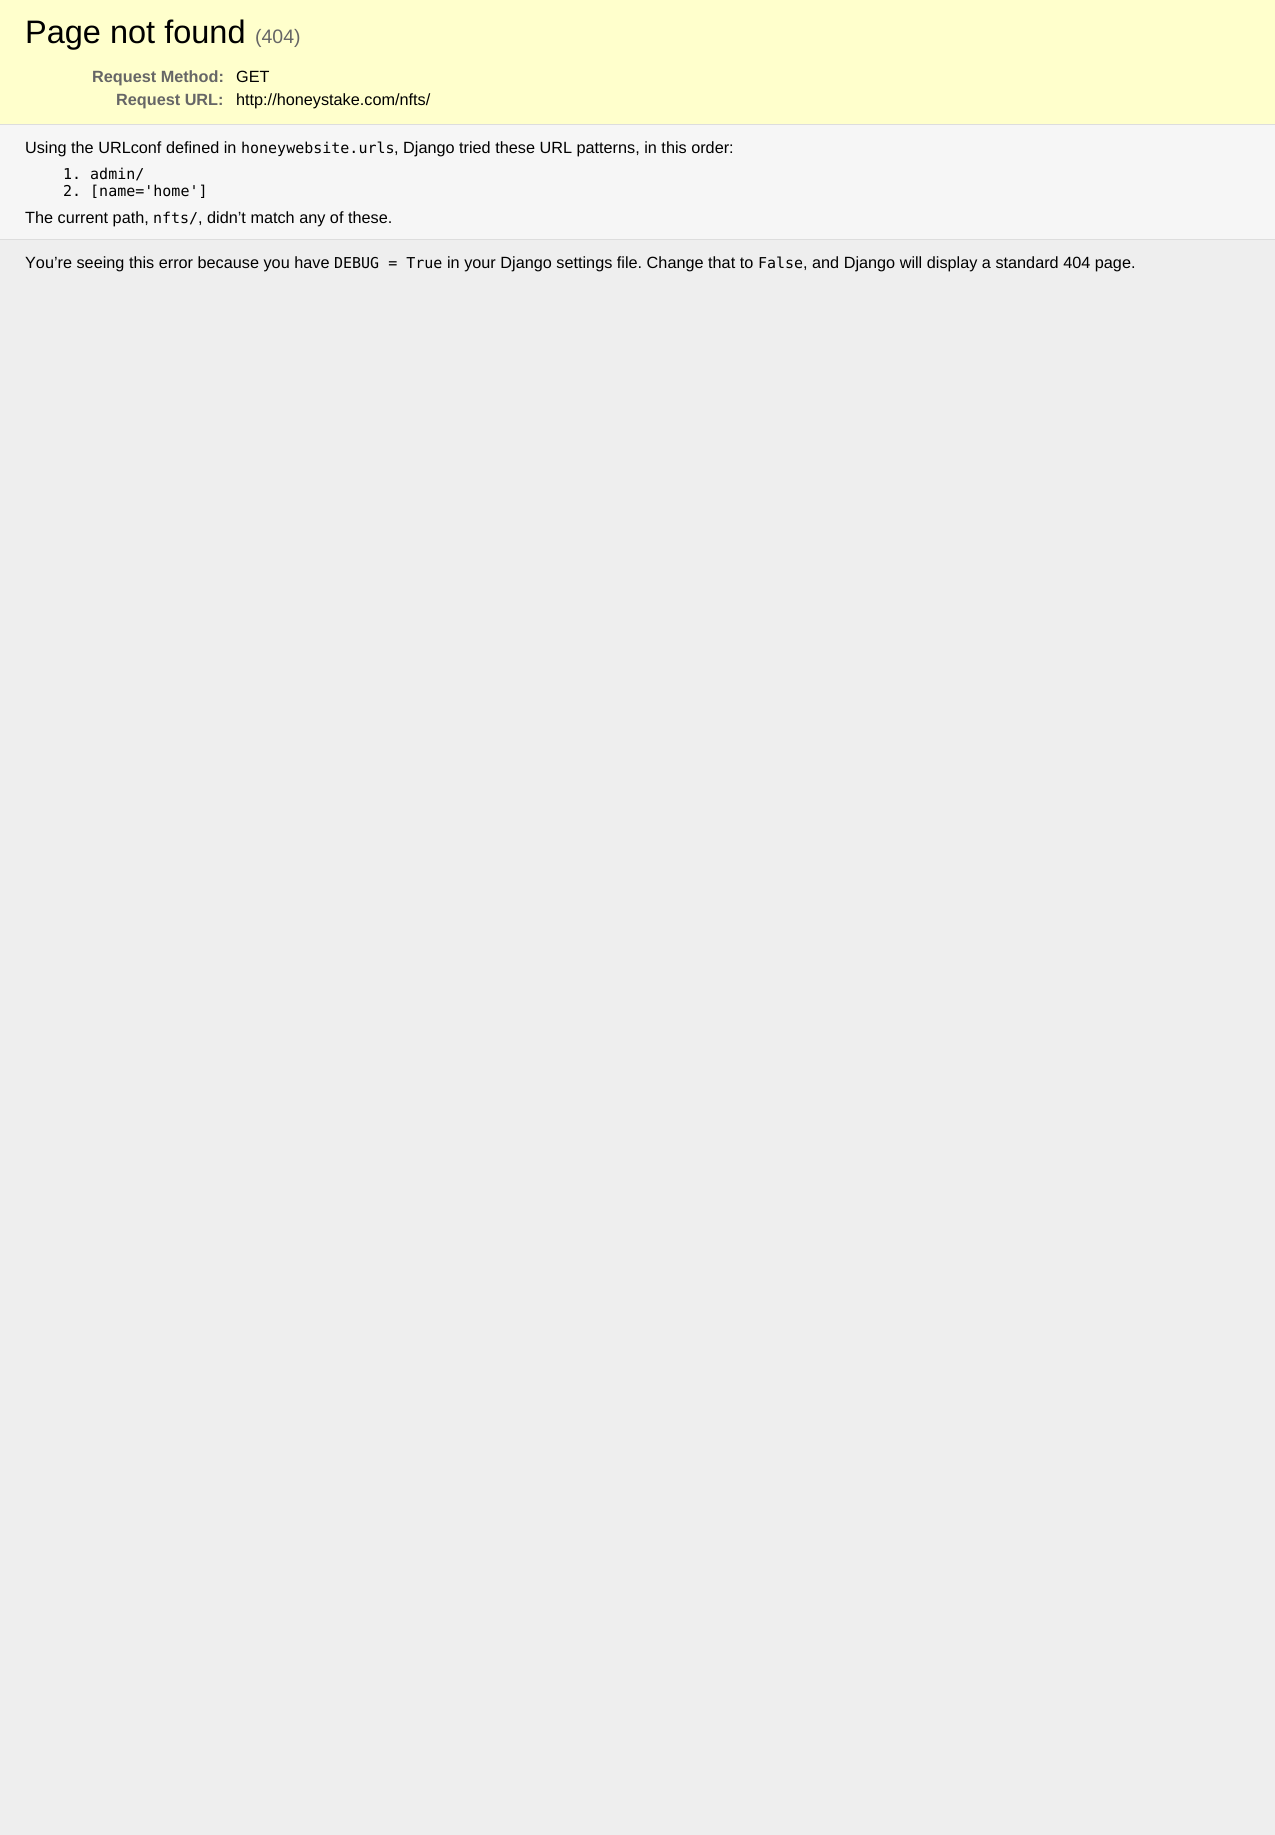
#include <cairo/cairo.h>
#include <math.h>
#include <stddef.h>

static cairo_t *cr;

static void use_color(int r, int g, int b) {
  cairo_set_source_rgb(cr, r / 255.0, g / 255.0, b / 255.0);
}

static void text(double x, double y, const char *s, const char *family, double size, int italic, int bold, int r, int g, int b) {
  cairo_select_font_face(cr, family, italic ? CAIRO_FONT_SLANT_ITALIC : CAIRO_FONT_SLANT_NORMAL,
    bold ? CAIRO_FONT_WEIGHT_BOLD : CAIRO_FONT_WEIGHT_NORMAL);
  cairo_set_font_size(cr, size);
  use_color(r, g, b);
  cairo_move_to(cr, x, y);
  cairo_show_text(cr, s);
}

static void box(double x, double y, double w, double h, int r, int g, int b) {
  use_color(r, g, b);
  cairo_rectangle(cr, x, y, w, h);
  cairo_fill(cr);
}

static void draw(void) {
  use_color(238, 238, 238);
  cairo_paint(cr);
  box(0, 0, 1275, 124, 255, 255, 204);
  box(0, 124, 1275, 1, 221, 221, 221);
  box(0, 125, 1275, 114, 246, 246, 246);
  box(0, 239, 1275, 1, 221, 221, 221);
  text(25, 43, "Page not found", "Liberation Sans", 32.5, 0, 0, 0, 0, 0);
  text(255, 43, "(404)", "Liberation Sans", 19.5, 0, 0, 102, 102, 102);
  text(92, 82, "Request Method:", "Liberation Sans", 16.25, 0, 1, 102, 102, 102);
  text(236, 82, "GET", "Liberation Sans", 16.25, 0, 0, 0, 0, 0);
  text(116, 105, "Request URL:", "Liberation Sans", 16.25, 0, 1, 102, 102, 102);
  text(236, 105, "http://honeystake.com/nfts/", "Liberation Sans", 16.25, 0, 0, 0, 0, 0);
  text(25, 153, "Using the URLconf defined in", "Liberation Sans", 16.25, 0, 0, 0, 0, 0);
  text(241, 153, "honeywebsite.urls", "DejaVu Sans Mono", 15, 0, 0, 0, 0, 0);
  text(394, 153, ", Django tried these URL patterns, in this order:", "Liberation Sans", 16.25, 0, 0, 0, 0, 0);
  text(63, 179, "1. admin/", "DejaVu Sans Mono", 15, 0, 0, 0, 0, 0);
  text(63, 196, "2. [name='home']", "DejaVu Sans Mono", 15, 0, 0, 0, 0, 0);
  text(25, 223, "The current path,", "Liberation Sans", 16.25, 0, 0, 0, 0, 0);
  text(153, 223, "nfts/", "DejaVu Sans Mono", 15, 0, 0, 0, 0, 0);
  text(198, 223, ", didn’t match any of these.", "Liberation Sans", 16.25, 0, 0, 0, 0, 0);
  text(25, 268, "You’re seeing this error because you have", "Liberation Sans", 16.25, 0, 0, 0, 0, 0);
  text(334, 268, "DEBUG = True", "DejaVu Sans Mono", 15, 0, 0, 0, 0, 0);
  text(447, 268, "in your Django settings file. Change that to", "Liberation Sans", 16.25, 0, 0, 0, 0, 0);
  text(758, 268, "False", "DejaVu Sans Mono", 15, 0, 0, 0, 0, 0);
  text(803, 268, ", and Django will display a standard 404 page.", "Liberation Sans", 16.25, 0, 0, 0, 0, 0);
}

int main(void) {
  cairo_surface_t *surface = cairo_image_surface_create(CAIRO_FORMAT_RGB24, 1275, 1835);
  cr = cairo_create(surface);
  cairo_font_options_t *options = cairo_font_options_create();
  cairo_font_options_set_hint_metrics(options, CAIRO_HINT_METRICS_OFF);
  cairo_font_options_set_hint_style(options, CAIRO_HINT_STYLE_NONE);
  cairo_set_font_options(cr, options);
  cairo_set_miter_limit(cr, 4);
  draw();
  cairo_surface_write_to_png(surface, "out.png");
  cairo_font_options_destroy(options);
  cairo_destroy(cr);
  cairo_surface_destroy(surface);
  return 0;
}
